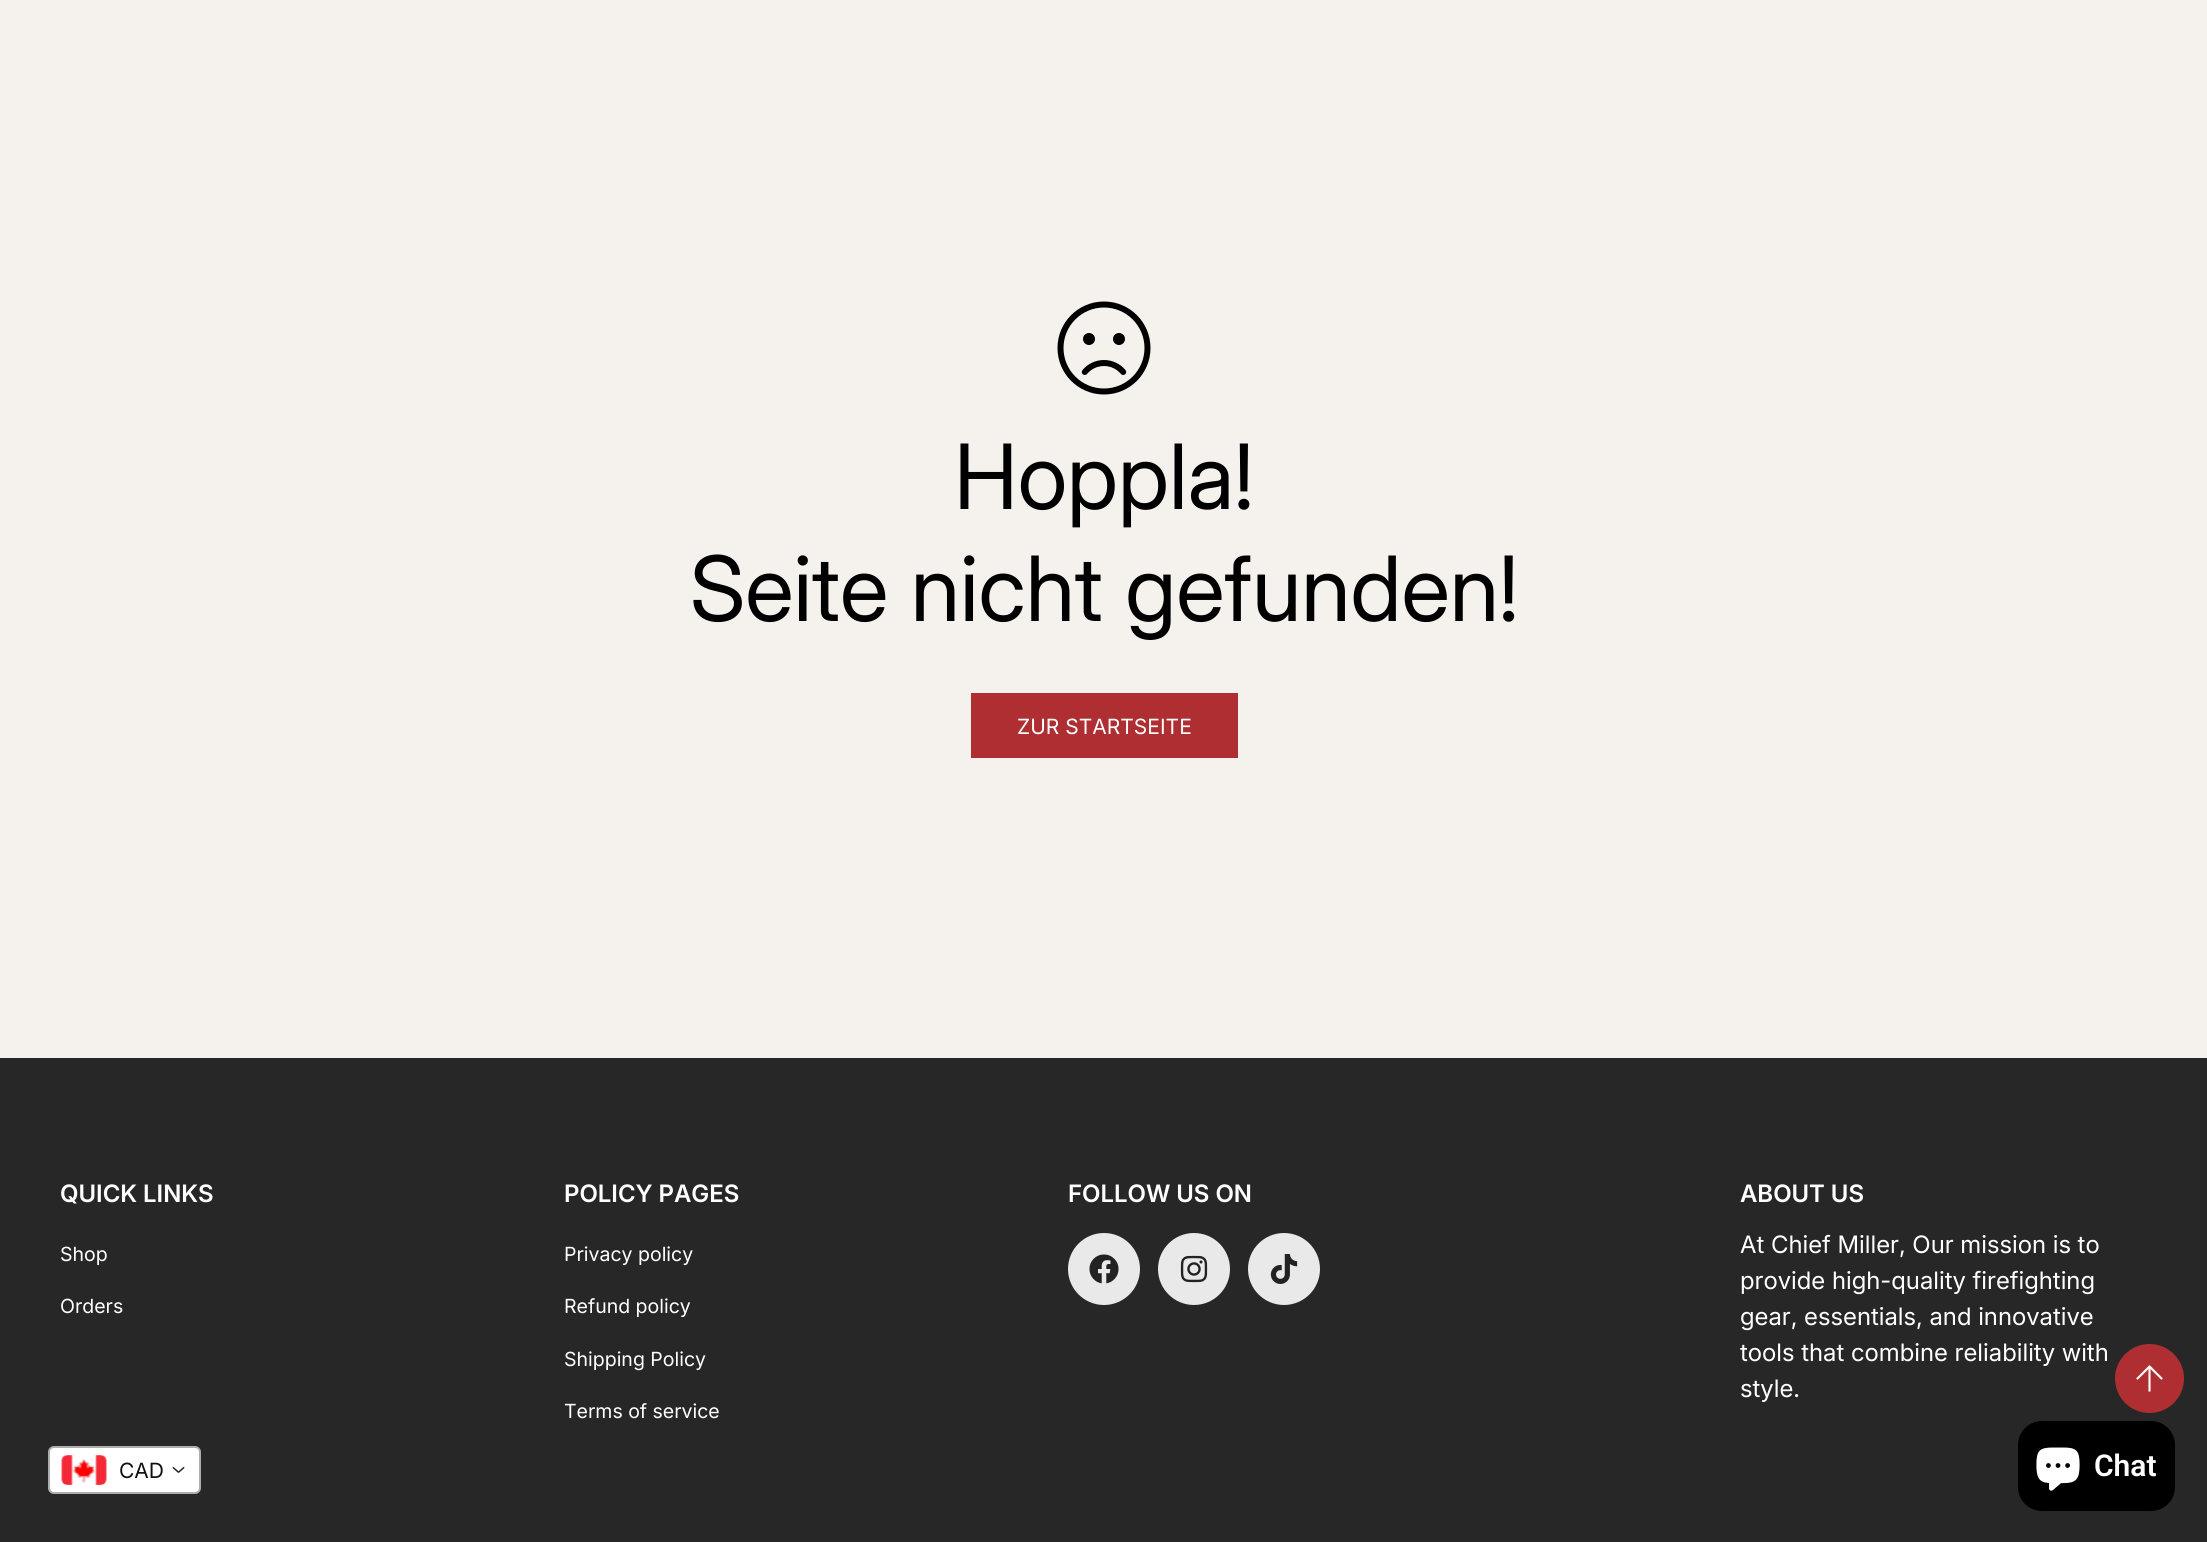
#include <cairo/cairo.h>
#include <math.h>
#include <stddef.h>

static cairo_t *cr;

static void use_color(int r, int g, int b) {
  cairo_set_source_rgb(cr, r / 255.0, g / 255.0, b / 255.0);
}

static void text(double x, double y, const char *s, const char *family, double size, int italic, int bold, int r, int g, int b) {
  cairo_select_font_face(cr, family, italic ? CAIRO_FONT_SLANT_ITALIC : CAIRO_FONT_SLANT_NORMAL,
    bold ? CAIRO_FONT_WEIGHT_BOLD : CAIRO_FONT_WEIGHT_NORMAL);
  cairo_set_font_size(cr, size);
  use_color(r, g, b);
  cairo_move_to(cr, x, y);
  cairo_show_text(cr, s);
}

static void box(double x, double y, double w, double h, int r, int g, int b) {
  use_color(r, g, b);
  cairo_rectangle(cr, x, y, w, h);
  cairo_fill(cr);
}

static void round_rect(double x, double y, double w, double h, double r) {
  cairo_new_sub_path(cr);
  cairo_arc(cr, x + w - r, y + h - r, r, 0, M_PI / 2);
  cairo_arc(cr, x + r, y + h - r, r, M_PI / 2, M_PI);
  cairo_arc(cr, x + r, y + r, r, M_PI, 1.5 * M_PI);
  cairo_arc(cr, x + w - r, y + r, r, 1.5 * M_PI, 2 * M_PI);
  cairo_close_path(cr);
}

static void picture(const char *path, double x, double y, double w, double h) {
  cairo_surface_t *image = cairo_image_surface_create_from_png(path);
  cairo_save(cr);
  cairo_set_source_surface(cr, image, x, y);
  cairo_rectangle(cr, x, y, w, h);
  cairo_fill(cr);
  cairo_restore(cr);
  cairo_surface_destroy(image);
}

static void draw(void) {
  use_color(245, 241, 237);
  cairo_paint(cr);
  picture("img_01.png", 1057, 301, 94, 94);
  box(971, 693, 267, 65, 174, 46, 50);
  box(0, 1058, 2207, 484, 39, 39, 39);
  use_color(233, 233, 233);
  cairo_arc(cr, 1104, 1269, 36, 0, 2 * M_PI);
  cairo_fill(cr);
  picture("img_02.png", 1089, 1254, 30, 30);
  cairo_arc(cr, 1194, 1269, 36, 0, 2 * M_PI);
  cairo_fill(cr);
  picture("img_03.png", 1180, 1255, 28, 28);
  cairo_arc(cr, 1284, 1269, 36, 0, 2 * M_PI);
  cairo_fill(cr);
  picture("img_04.png", 1270, 1254, 28, 30);
  use_color(174, 46, 50);
  cairo_arc(cr, 2149.5, 1378.5, 33.5, 0, 2 * M_PI);
  cairo_fill_preserve(cr);
  cairo_stroke(cr);
  picture("img_05.png", 2136, 1365, 27, 27);
  use_color(255, 255, 255);
  round_rect(49, 1447, 151, 46, 5);
  cairo_fill_preserve(cr);
  use_color(174, 174, 174);
  cairo_stroke(cr);
  picture("img_06.png", 61, 1455, 46, 30);
  picture("img_07.png", 172, 1467, 13, 6);
  use_color(0, 0, 0);
  round_rect(2018, 1421, 157, 90, 24);
  cairo_fill(cr);
  picture("img_08.png", 2036, 1447, 44, 44);
  text(954, 509, "Hoppla!", "Inter", 90, 0, 0, 0, 0, 0);
  text(690, 621, "Seite nicht gefunden!", "Inter", 90, 0, 0, 0, 0, 0);
  text(1017, 734, "ZUR STARTSEITE", "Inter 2", 21, 0, 0, 255, 255, 255);
  text(60, 1202, "QUICK LINKS", "Inter SemiBold", 24, 0, 0, 255, 255, 255);
  text(60, 1261, "Shop", "Inter 2", 19.5, 0, 0, 255, 255, 255);
  text(60, 1313, "Orders", "Inter 2", 19.5, 0, 0, 255, 255, 255);
  text(564, 1202, "POLICY PAGES", "Inter SemiBold", 24, 0, 0, 255, 255, 255);
  text(564, 1261, "Privacy policy", "Inter 2", 19.5, 0, 0, 255, 255, 255);
  text(564, 1313, "Refund policy", "Inter 2", 19.5, 0, 0, 255, 255, 255);
  text(564, 1366, "Shipping Policy", "Inter 2", 19.5, 0, 0, 255, 255, 255);
  text(564, 1418, "Terms of service", "Inter 2", 19.5, 0, 0, 255, 255, 255);
  text(1068, 1202, "FOLLOW US ON", "Inter SemiBold", 24, 0, 0, 255, 255, 255);
  text(1740, 1202, "ABOUT US", "Inter SemiBold", 24, 0, 0, 255, 255, 255);
  text(1740, 1253, "At Chief Miller, Our mission is to", "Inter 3", 24, 0, 0, 255, 255, 255);
  text(1740, 1289, "provide high-quality firefighting", "Inter 3", 24, 0, 0, 255, 255, 255);
  text(1740, 1325, "gear, essentials, and innovative", "Inter 3", 24, 0, 0, 255, 255, 255);
  text(1740, 1361, "tools that combine reliability with", "Inter 3", 24, 0, 0, 255, 255, 255);
  text(1740, 1397, "style.", "Inter 3", 24, 0, 0, 255, 255, 255);
  text(119, 1478, "CAD", "Inter 2", 21, 0, 0, 17, 17, 17);
  text(2094, 1476, "Chat", "Roboto SemiBold", 30, 0, 0, 255, 255, 255);
}

int main(void) {
  cairo_surface_t *surface = cairo_image_surface_create(CAIRO_FORMAT_RGB24, 2207, 1542);
  cr = cairo_create(surface);
  cairo_font_options_t *options = cairo_font_options_create();
  cairo_font_options_set_hint_metrics(options, CAIRO_HINT_METRICS_OFF);
  cairo_font_options_set_hint_style(options, CAIRO_HINT_STYLE_NONE);
  cairo_set_font_options(cr, options);
  cairo_set_miter_limit(cr, 4);
  draw();
  cairo_surface_write_to_png(surface, "out.png");
  cairo_font_options_destroy(options);
  cairo_destroy(cr);
  cairo_surface_destroy(surface);
  return 0;
}
